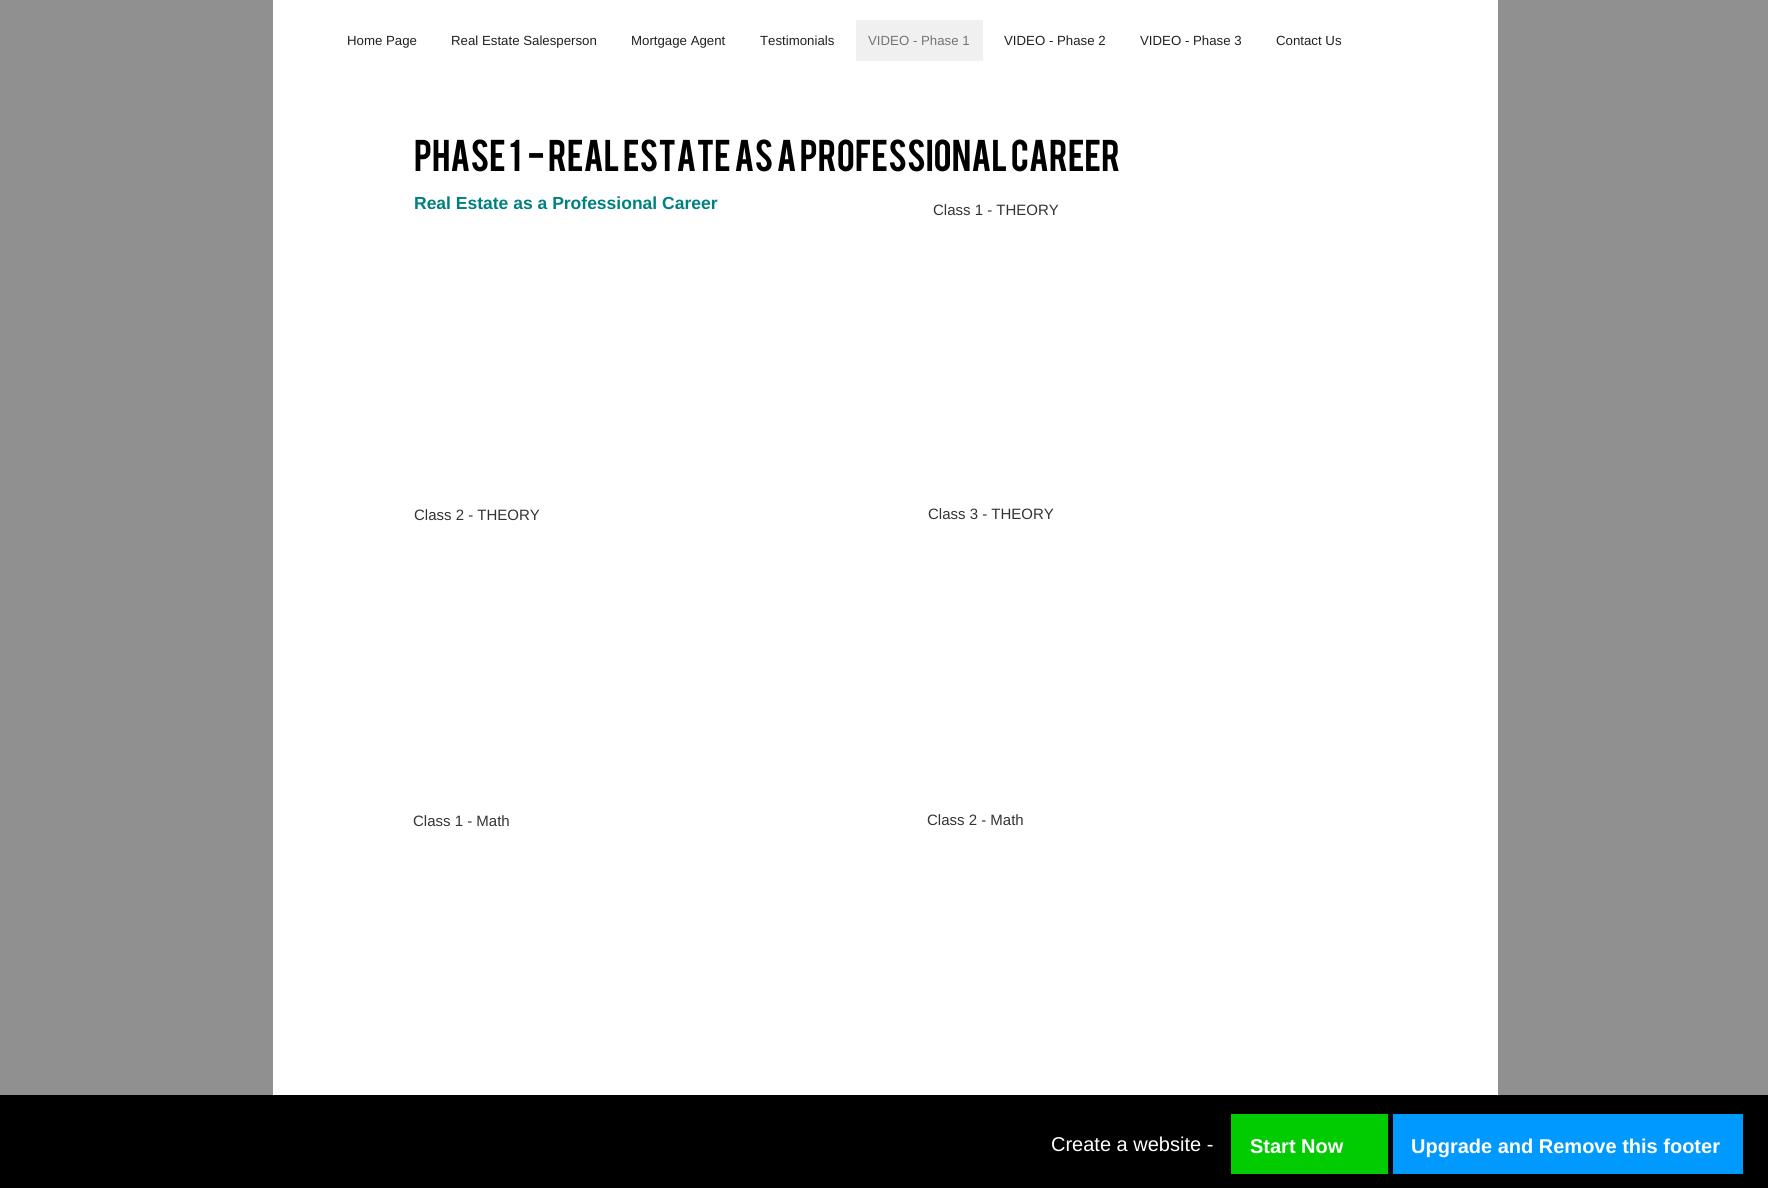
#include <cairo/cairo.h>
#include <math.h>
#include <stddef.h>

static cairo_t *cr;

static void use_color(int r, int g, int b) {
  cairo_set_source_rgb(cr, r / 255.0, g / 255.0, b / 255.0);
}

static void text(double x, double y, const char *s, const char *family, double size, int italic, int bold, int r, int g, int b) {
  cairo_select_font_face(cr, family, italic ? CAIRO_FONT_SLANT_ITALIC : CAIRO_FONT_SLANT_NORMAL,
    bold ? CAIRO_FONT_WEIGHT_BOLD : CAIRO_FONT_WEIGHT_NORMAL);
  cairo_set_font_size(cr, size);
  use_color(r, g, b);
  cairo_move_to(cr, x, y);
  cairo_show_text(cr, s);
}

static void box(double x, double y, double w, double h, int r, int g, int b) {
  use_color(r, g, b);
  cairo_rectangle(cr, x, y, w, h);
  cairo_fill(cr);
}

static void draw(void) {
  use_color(144, 144, 144);
  cairo_paint(cr);
  box(273, 0, 1225, 1095, 255, 255, 255);
  box(856, 20, 127, 41, 240, 240, 240);
  box(0, 1095, 1768, 93, 0, 0, 0);
  box(1231, 1114, 157, 60, 0, 204, 0);
  box(1393, 1114, 350, 60, 0, 153, 255);
  text(347, 45, "Home Page", "Liberation Sans", 13.25, 0, 0, 32, 32, 32);
  text(451, 45, "Real Estate Salesperson", "Liberation Sans", 13.25, 0, 0, 32, 32, 32);
  text(631, 45, "Mortgage Agent", "Liberation Sans", 13.25, 0, 0, 32, 32, 32);
  text(760, 45, "Testimonials", "Liberation Sans", 13.25, 0, 0, 32, 32, 32);
  text(868, 45, "VIDEO - Phase 1", "Liberation Sans", 13.25, 0, 0, 120, 114, 120);
  text(1004, 45, "VIDEO - Phase 2", "Liberation Sans", 13.25, 0, 0, 32, 32, 32);
  text(1140, 45, "VIDEO - Phase 3", "Liberation Sans", 13.25, 0, 0, 32, 32, 32);
  text(1276, 45, "Contact Us", "Liberation Sans", 13.25, 0, 0, 32, 32, 32);
  text(414, 171, "Phase 1  - real estate as a professional career", "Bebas", 35, 0, 0, 0, 0, 0);
  text(414, 209, "Real Estate as a Professional Career", "Liberation Sans", 17.5, 0, 1, 0, 128, 128);
  text(933, 215, "Class 1 - THEORY", "Liberation Sans", 15, 0, 0, 51, 51, 51);
  text(414, 520, "Class 2 - THEORY", "Liberation Sans", 15, 0, 0, 51, 51, 51);
  text(928, 519, "Class 3 - THEORY", "Liberation Sans", 15, 0, 0, 51, 51, 51);
  text(413, 826, "Class 1 - Math", "Liberation Sans", 15, 0, 0, 51, 51, 51);
  text(927, 825, "Class 2 - Math", "Liberation Sans", 15, 0, 0, 51, 51, 51);
  text(1051, 1151, "Create a website -", "Liberation Sans", 20, 0, 0, 255, 255, 255);
  text(1250, 1153, "Start Now", "Liberation Sans", 20, 0, 1, 255, 255, 255);
  text(1411, 1153, "Upgrade and Remove this footer", "Liberation Sans", 20, 0, 1, 255, 255, 255);
}

int main(void) {
  cairo_surface_t *surface = cairo_image_surface_create(CAIRO_FORMAT_RGB24, 1768, 1188);
  cr = cairo_create(surface);
  cairo_font_options_t *options = cairo_font_options_create();
  cairo_font_options_set_hint_metrics(options, CAIRO_HINT_METRICS_OFF);
  cairo_font_options_set_hint_style(options, CAIRO_HINT_STYLE_NONE);
  cairo_set_font_options(cr, options);
  cairo_set_miter_limit(cr, 4);
  draw();
  cairo_surface_write_to_png(surface, "out.png");
  cairo_font_options_destroy(options);
  cairo_destroy(cr);
  cairo_surface_destroy(surface);
  return 0;
}
